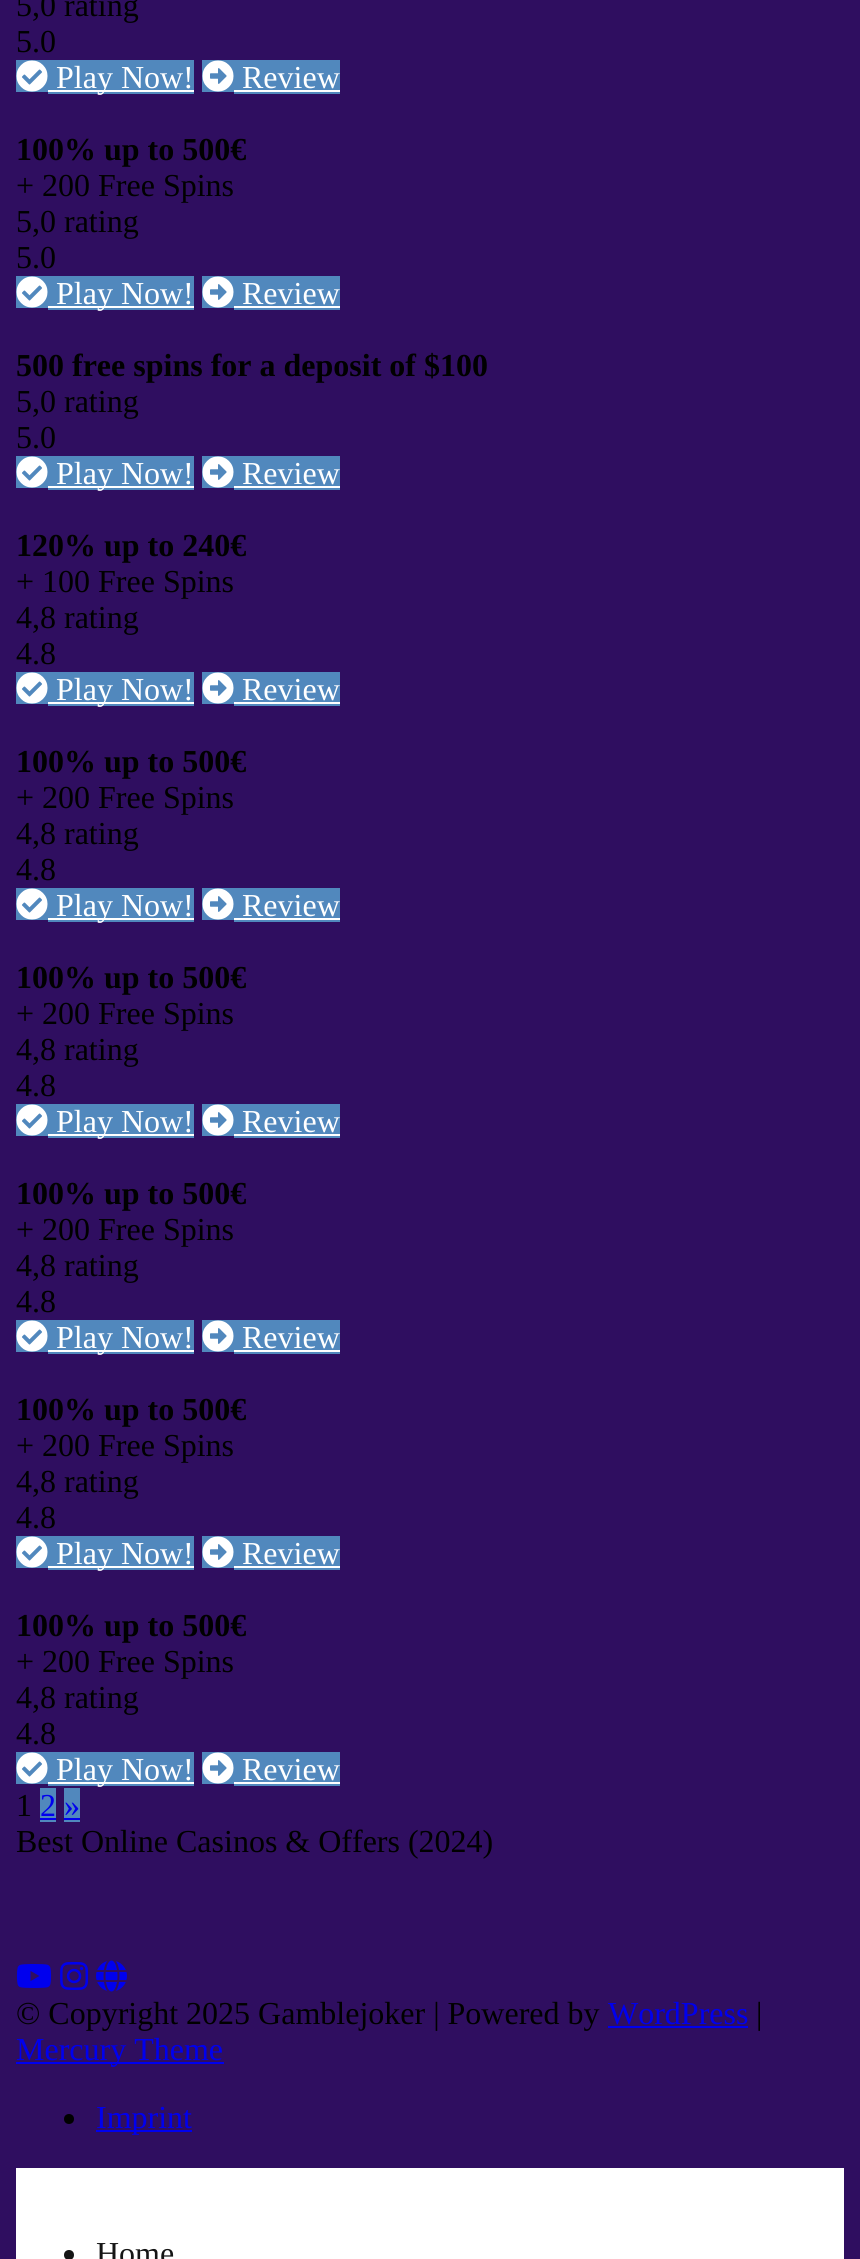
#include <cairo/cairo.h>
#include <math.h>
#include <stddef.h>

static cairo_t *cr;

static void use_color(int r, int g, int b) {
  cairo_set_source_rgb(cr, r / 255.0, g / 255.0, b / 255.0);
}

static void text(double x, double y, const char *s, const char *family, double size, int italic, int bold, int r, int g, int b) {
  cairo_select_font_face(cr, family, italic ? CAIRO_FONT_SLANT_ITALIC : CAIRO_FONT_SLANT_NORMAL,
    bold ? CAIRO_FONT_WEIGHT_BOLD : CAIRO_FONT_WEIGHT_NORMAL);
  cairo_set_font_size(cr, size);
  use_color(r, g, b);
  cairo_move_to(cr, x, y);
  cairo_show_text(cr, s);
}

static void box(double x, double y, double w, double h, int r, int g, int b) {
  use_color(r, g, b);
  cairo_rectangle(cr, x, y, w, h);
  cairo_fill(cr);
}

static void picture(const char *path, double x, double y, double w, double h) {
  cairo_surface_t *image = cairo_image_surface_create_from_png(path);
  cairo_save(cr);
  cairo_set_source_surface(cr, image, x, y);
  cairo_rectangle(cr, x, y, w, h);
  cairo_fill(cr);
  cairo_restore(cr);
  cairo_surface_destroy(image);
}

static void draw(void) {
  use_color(47, 14, 96);
  cairo_paint(cr);
  box(16, 60, 32, 32, 81, 136, 189);
  box(48, 60, 146, 34, 81, 136, 189);
  picture("img_01.png", 16, 60, 32, 32);
  box(48, 90, 146, 2, 255, 255, 255);
  box(202, 60, 32, 32, 81, 136, 189);
  box(234, 60, 106, 34, 81, 136, 189);
  picture("img_02.png", 202, 60, 32, 32);
  box(234, 90, 106, 2, 255, 255, 255);
  box(16, 276, 32, 32, 81, 136, 189);
  box(48, 276, 146, 34, 81, 136, 189);
  picture("img_01.png", 16, 276, 32, 32);
  box(48, 306, 146, 2, 255, 255, 255);
  box(202, 276, 32, 32, 81, 136, 189);
  box(234, 276, 106, 34, 81, 136, 189);
  picture("img_02.png", 202, 276, 32, 32);
  box(234, 306, 106, 2, 255, 255, 255);
  box(16, 456, 32, 32, 81, 136, 189);
  box(48, 456, 146, 34, 81, 136, 189);
  picture("img_01.png", 16, 456, 32, 32);
  box(48, 486, 146, 2, 255, 255, 255);
  box(202, 456, 32, 32, 81, 136, 189);
  box(234, 456, 106, 34, 81, 136, 189);
  picture("img_02.png", 202, 456, 32, 32);
  box(234, 486, 106, 2, 255, 255, 255);
  box(16, 672, 32, 32, 81, 136, 189);
  box(48, 672, 146, 34, 81, 136, 189);
  picture("img_01.png", 16, 672, 32, 32);
  box(48, 702, 146, 2, 255, 255, 255);
  box(202, 672, 32, 32, 81, 136, 189);
  box(234, 672, 106, 34, 81, 136, 189);
  picture("img_02.png", 202, 672, 32, 32);
  box(234, 702, 106, 2, 255, 255, 255);
  box(16, 888, 32, 32, 81, 136, 189);
  box(48, 888, 146, 34, 81, 136, 189);
  picture("img_01.png", 16, 888, 32, 32);
  box(48, 918, 146, 2, 255, 255, 255);
  box(202, 888, 32, 32, 81, 136, 189);
  box(234, 888, 106, 34, 81, 136, 189);
  picture("img_02.png", 202, 888, 32, 32);
  box(234, 918, 106, 2, 255, 255, 255);
  box(16, 1104, 32, 32, 81, 136, 189);
  box(48, 1104, 146, 34, 81, 136, 189);
  picture("img_01.png", 16, 1104, 32, 32);
  box(48, 1134, 146, 2, 255, 255, 255);
  box(202, 1104, 32, 32, 81, 136, 189);
  box(234, 1104, 106, 34, 81, 136, 189);
  picture("img_02.png", 202, 1104, 32, 32);
  box(234, 1134, 106, 2, 255, 255, 255);
  box(16, 1320, 32, 32, 81, 136, 189);
  box(48, 1320, 146, 34, 81, 136, 189);
  picture("img_01.png", 16, 1320, 32, 32);
  box(48, 1350, 146, 2, 255, 255, 255);
  box(202, 1320, 32, 32, 81, 136, 189);
  box(234, 1320, 106, 34, 81, 136, 189);
  picture("img_02.png", 202, 1320, 32, 32);
  box(234, 1350, 106, 2, 255, 255, 255);
  box(16, 1536, 32, 32, 81, 136, 189);
  box(48, 1536, 146, 34, 81, 136, 189);
  picture("img_01.png", 16, 1536, 32, 32);
  box(48, 1566, 146, 2, 255, 255, 255);
  box(202, 1536, 32, 32, 81, 136, 189);
  box(234, 1536, 106, 34, 81, 136, 189);
  picture("img_02.png", 202, 1536, 32, 32);
  box(234, 1566, 106, 2, 255, 255, 255);
  box(16, 1752, 32, 32, 81, 136, 189);
  box(48, 1752, 146, 34, 81, 136, 189);
  picture("img_01.png", 16, 1752, 32, 32);
  box(48, 1782, 146, 2, 255, 255, 255);
  box(202, 1752, 32, 32, 81, 136, 189);
  box(234, 1752, 106, 34, 81, 136, 189);
  picture("img_02.png", 202, 1752, 32, 32);
  box(234, 1782, 106, 2, 255, 255, 255);
  box(40, 1788, 16, 34, 81, 136, 189);
  box(40, 1818, 16, 2, 0, 0, 238);
  box(64, 1788, 16, 34, 81, 136, 189);
  box(64, 1818, 16, 2, 0, 0, 238);
  picture("img_03.png", 16, 1964, 36, 24);
  picture("img_04.png", 60, 1962, 29, 28);
  picture("img_05.png", 96, 1960, 31, 32);
  box(608, 2026, 140, 2, 0, 0, 238);
  box(16, 2062, 208, 2, 0, 0, 238);
  use_color(0, 0, 0);
  cairo_arc(cr, 69, 2119, 5, 0, 2 * M_PI);
  cairo_fill(cr);
  box(96, 2130, 96, 2, 0, 0, 238);
  box(16, 2168, 828, 91, 255, 255, 255);
  use_color(21, 21, 21);
  cairo_arc(cr, 69, 2255, 5, 0, 2 * M_PI);
  cairo_fill(cr);
  text(16, 16, "5,0 rating", "Liberation Serif", 32, 0, 0, 0, 0, 0);
  text(16, 52, "5.0", "Liberation Serif", 32, 0, 0, 0, 0, 0);
  text(56, 88, "Play Now!", "Liberation Serif", 32, 0, 0, 255, 255, 255);
  text(242, 88, "Review", "Liberation Serif", 32, 0, 0, 255, 255, 255);
  text(16, 160, "100% up to 500€", "Liberation Serif", 32, 0, 1, 0, 0, 0);
  text(16, 196, "+ 200 Free Spins", "Liberation Serif", 32, 0, 0, 0, 0, 0);
  text(16, 232, "5,0 rating", "Liberation Serif", 32, 0, 0, 0, 0, 0);
  text(16, 268, "5.0", "Liberation Serif", 32, 0, 0, 0, 0, 0);
  text(56, 304, "Play Now!", "Liberation Serif", 32, 0, 0, 255, 255, 255);
  text(242, 304, "Review", "Liberation Serif", 32, 0, 0, 255, 255, 255);
  text(16, 376, "500 free spins for a deposit of $100", "Liberation Serif", 32, 0, 1, 0, 0, 0);
  text(16, 412, "5,0 rating", "Liberation Serif", 32, 0, 0, 0, 0, 0);
  text(16, 448, "5.0", "Liberation Serif", 32, 0, 0, 0, 0, 0);
  text(56, 484, "Play Now!", "Liberation Serif", 32, 0, 0, 255, 255, 255);
  text(242, 484, "Review", "Liberation Serif", 32, 0, 0, 255, 255, 255);
  text(16, 556, "120% up to 240€", "Liberation Serif", 32, 0, 1, 0, 0, 0);
  text(16, 592, "+ 100 Free Spins", "Liberation Serif", 32, 0, 0, 0, 0, 0);
  text(16, 628, "4,8 rating", "Liberation Serif", 32, 0, 0, 0, 0, 0);
  text(16, 664, "4.8", "Liberation Serif", 32, 0, 0, 0, 0, 0);
  text(56, 700, "Play Now!", "Liberation Serif", 32, 0, 0, 255, 255, 255);
  text(242, 700, "Review", "Liberation Serif", 32, 0, 0, 255, 255, 255);
  text(16, 772, "100% up to 500€", "Liberation Serif", 32, 0, 1, 0, 0, 0);
  text(16, 808, "+ 200 Free Spins", "Liberation Serif", 32, 0, 0, 0, 0, 0);
  text(16, 844, "4,8 rating", "Liberation Serif", 32, 0, 0, 0, 0, 0);
  text(16, 880, "4.8", "Liberation Serif", 32, 0, 0, 0, 0, 0);
  text(56, 916, "Play Now!", "Liberation Serif", 32, 0, 0, 255, 255, 255);
  text(242, 916, "Review", "Liberation Serif", 32, 0, 0, 255, 255, 255);
  text(16, 988, "100% up to 500€", "Liberation Serif", 32, 0, 1, 0, 0, 0);
  text(16, 1024, "+ 200 Free Spins", "Liberation Serif", 32, 0, 0, 0, 0, 0);
  text(16, 1060, "4,8 rating", "Liberation Serif", 32, 0, 0, 0, 0, 0);
  text(16, 1096, "4.8", "Liberation Serif", 32, 0, 0, 0, 0, 0);
  text(56, 1132, "Play Now!", "Liberation Serif", 32, 0, 0, 255, 255, 255);
  text(242, 1132, "Review", "Liberation Serif", 32, 0, 0, 255, 255, 255);
  text(16, 1204, "100% up to 500€", "Liberation Serif", 32, 0, 1, 0, 0, 0);
  text(16, 1240, "+ 200 Free Spins", "Liberation Serif", 32, 0, 0, 0, 0, 0);
  text(16, 1276, "4,8 rating", "Liberation Serif", 32, 0, 0, 0, 0, 0);
  text(16, 1312, "4.8", "Liberation Serif", 32, 0, 0, 0, 0, 0);
  text(56, 1348, "Play Now!", "Liberation Serif", 32, 0, 0, 255, 255, 255);
  text(242, 1348, "Review", "Liberation Serif", 32, 0, 0, 255, 255, 255);
  text(16, 1420, "100% up to 500€", "Liberation Serif", 32, 0, 1, 0, 0, 0);
  text(16, 1456, "+ 200 Free Spins", "Liberation Serif", 32, 0, 0, 0, 0, 0);
  text(16, 1492, "4,8 rating", "Liberation Serif", 32, 0, 0, 0, 0, 0);
  text(16, 1528, "4.8", "Liberation Serif", 32, 0, 0, 0, 0, 0);
  text(56, 1564, "Play Now!", "Liberation Serif", 32, 0, 0, 255, 255, 255);
  text(242, 1564, "Review", "Liberation Serif", 32, 0, 0, 255, 255, 255);
  text(16, 1636, "100% up to 500€", "Liberation Serif", 32, 0, 1, 0, 0, 0);
  text(16, 1672, "+ 200 Free Spins", "Liberation Serif", 32, 0, 0, 0, 0, 0);
  text(16, 1708, "4,8 rating", "Liberation Serif", 32, 0, 0, 0, 0, 0);
  text(16, 1744, "4.8", "Liberation Serif", 32, 0, 0, 0, 0, 0);
  text(56, 1780, "Play Now!", "Liberation Serif", 32, 0, 0, 255, 255, 255);
  text(242, 1780, "Review", "Liberation Serif", 32, 0, 0, 255, 255, 255);
  text(16, 1816, "1", "Liberation Serif", 32, 0, 0, 0, 0, 0);
  text(40, 1816, "2", "Liberation Serif", 32, 0, 0, 0, 0, 238);
  text(64, 1816, "»", "Liberation Serif", 32, 0, 0, 0, 0, 238);
  text(16, 1852, "Best Online Casinos & Offers (2024)", "Liberation Serif", 32, 0, 0, 0, 0, 0);
  text(16, 2024, "© Copyright 2025 Gamblejoker | Powered by", "Liberation Serif", 32, 0, 0, 0, 0, 0);
  text(608, 2024, "WordPress", "Liberation Serif", 32, 0, 0, 0, 0, 238);
  text(756, 2024, "|", "Liberation Serif", 32, 0, 0, 0, 0, 0);
  text(16, 2060, "Mercury Theme", "Liberation Serif", 32, 0, 0, 0, 0, 238);
  text(96, 2128, "Imprint", "Liberation Serif", 32, 0, 0, 0, 0, 238);
  text(96, 2264, "Home", "Liberation Serif", 32, 0, 0, 21, 21, 21);
}

int main(void) {
  cairo_surface_t *surface = cairo_image_surface_create(CAIRO_FORMAT_RGB24, 860, 2259);
  cr = cairo_create(surface);
  cairo_font_options_t *options = cairo_font_options_create();
  cairo_font_options_set_hint_metrics(options, CAIRO_HINT_METRICS_OFF);
  cairo_font_options_set_hint_style(options, CAIRO_HINT_STYLE_NONE);
  cairo_set_font_options(cr, options);
  cairo_set_miter_limit(cr, 4);
  draw();
  cairo_surface_write_to_png(surface, "out.png");
  cairo_font_options_destroy(options);
  cairo_destroy(cr);
  cairo_surface_destroy(surface);
  return 0;
}
